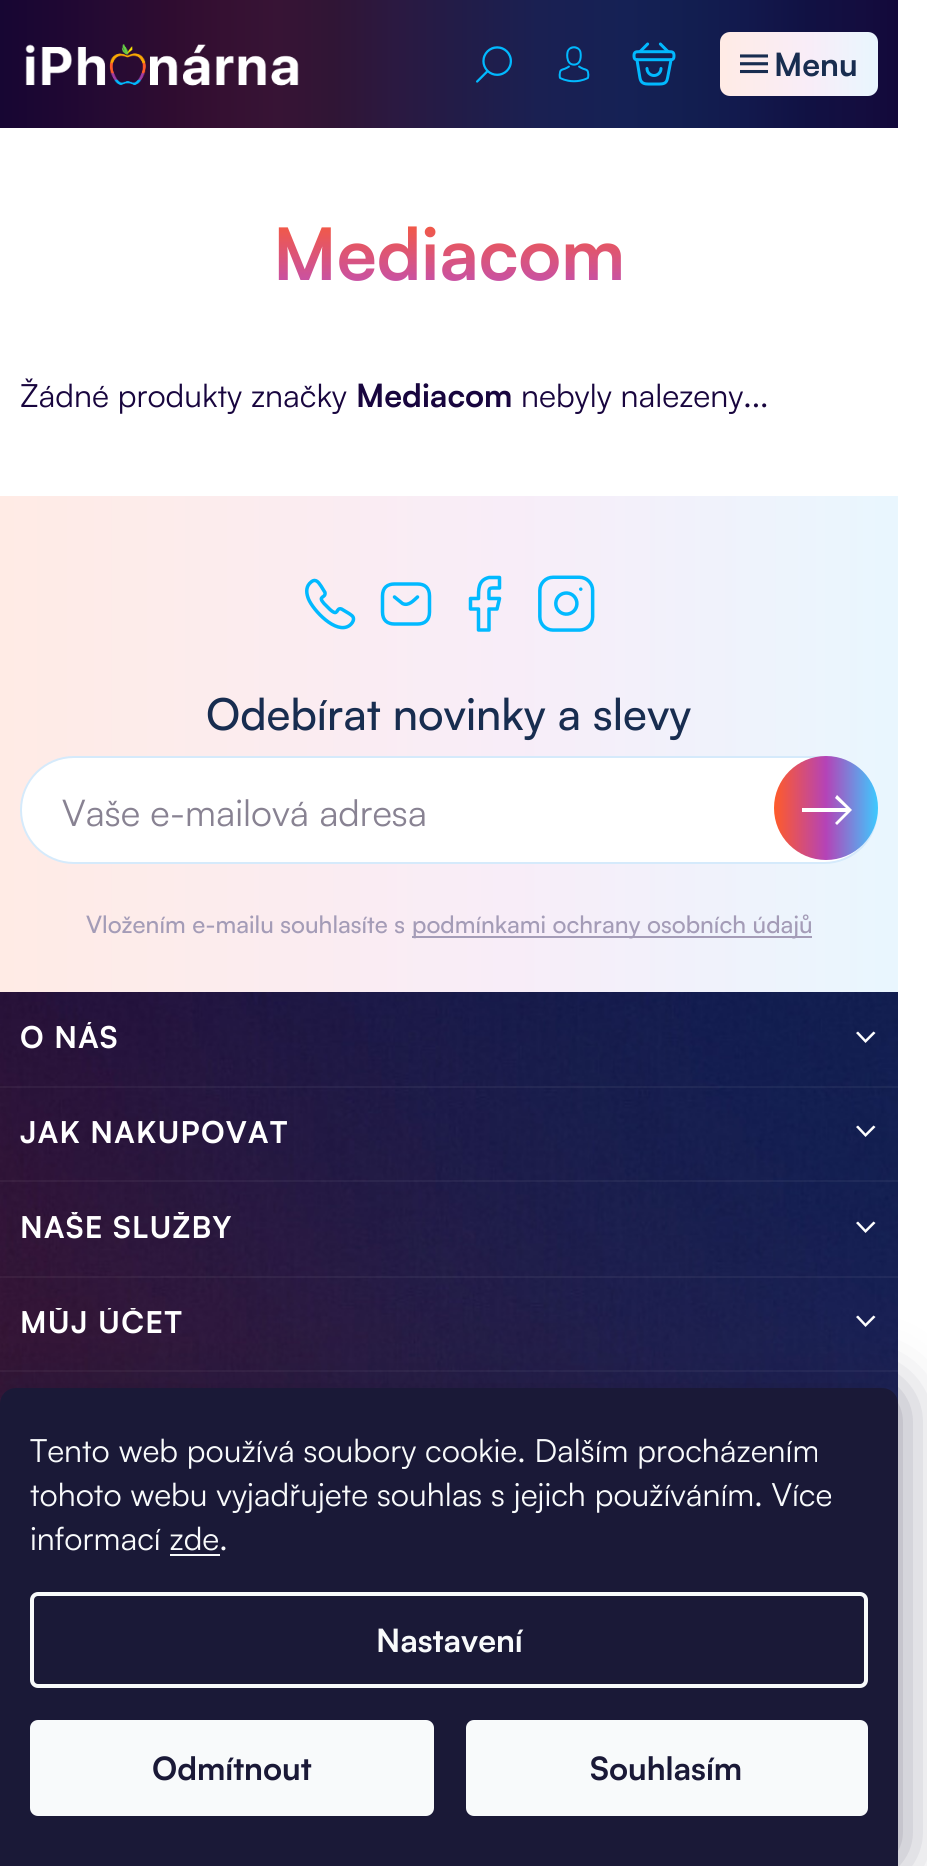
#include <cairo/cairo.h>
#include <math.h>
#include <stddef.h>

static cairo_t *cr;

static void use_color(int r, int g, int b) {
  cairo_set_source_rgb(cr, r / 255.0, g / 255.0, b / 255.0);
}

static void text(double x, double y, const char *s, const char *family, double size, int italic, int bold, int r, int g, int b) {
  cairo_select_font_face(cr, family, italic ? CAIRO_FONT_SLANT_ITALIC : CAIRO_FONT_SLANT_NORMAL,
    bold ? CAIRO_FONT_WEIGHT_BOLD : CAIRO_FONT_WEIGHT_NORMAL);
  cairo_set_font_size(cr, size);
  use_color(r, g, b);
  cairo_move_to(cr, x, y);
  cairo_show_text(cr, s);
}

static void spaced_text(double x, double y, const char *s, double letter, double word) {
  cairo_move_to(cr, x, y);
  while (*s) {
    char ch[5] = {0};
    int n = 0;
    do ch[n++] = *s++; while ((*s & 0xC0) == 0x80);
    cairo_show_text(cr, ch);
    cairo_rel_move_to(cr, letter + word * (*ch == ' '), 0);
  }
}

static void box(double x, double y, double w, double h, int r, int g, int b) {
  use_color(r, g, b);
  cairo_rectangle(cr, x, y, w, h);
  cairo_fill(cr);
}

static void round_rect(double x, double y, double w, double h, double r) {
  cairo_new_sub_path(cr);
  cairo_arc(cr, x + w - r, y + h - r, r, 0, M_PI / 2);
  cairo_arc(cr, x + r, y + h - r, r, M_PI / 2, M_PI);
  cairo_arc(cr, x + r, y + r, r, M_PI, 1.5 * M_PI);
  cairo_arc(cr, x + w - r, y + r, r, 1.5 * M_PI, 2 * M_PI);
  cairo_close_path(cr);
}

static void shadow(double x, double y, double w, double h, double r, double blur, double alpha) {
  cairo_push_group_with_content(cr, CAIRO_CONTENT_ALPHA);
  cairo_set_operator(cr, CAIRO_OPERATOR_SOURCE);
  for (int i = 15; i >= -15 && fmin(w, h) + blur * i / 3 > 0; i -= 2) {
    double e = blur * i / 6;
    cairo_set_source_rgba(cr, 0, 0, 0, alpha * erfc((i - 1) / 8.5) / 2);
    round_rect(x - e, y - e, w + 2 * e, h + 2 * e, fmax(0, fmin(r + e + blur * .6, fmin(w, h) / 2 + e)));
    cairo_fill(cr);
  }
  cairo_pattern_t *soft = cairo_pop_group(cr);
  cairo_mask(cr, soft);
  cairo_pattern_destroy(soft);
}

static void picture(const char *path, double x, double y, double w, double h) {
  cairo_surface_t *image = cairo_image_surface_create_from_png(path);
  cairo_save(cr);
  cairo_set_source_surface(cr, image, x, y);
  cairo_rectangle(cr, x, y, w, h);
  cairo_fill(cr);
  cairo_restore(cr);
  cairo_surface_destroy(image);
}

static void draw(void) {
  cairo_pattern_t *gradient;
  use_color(255, 255, 255);
  cairo_paint(cr);
  gradient = cairo_pattern_create_linear(0, 64, 898, 64);
  cairo_pattern_add_color_stop_rgba(gradient, 0, 0.09, 0.024, 0.2, 1);
  cairo_pattern_add_color_stop_rgba(gradient, 0.06, 0.118, 0.027, 0.2, 1);
  cairo_pattern_add_color_stop_rgba(gradient, 0.13, 0.153, 0.043, 0.2, 1);
  cairo_pattern_add_color_stop_rgba(gradient, 0.19, 0.184, 0.047, 0.188, 1);
  cairo_pattern_add_color_stop_rgba(gradient, 0.25, 0.208, 0.063, 0.196, 1);
  cairo_pattern_add_color_stop_rgba(gradient, 0.31, 0.216, 0.078, 0.208, 1);
  cairo_pattern_add_color_stop_rgba(gradient, 0.37, 0.188, 0.082, 0.208, 1);
  cairo_pattern_add_color_stop_rgba(gradient, 0.44, 0.169, 0.098, 0.255, 1);
  cairo_pattern_add_color_stop_rgba(gradient, 0.51, 0.133, 0.11, 0.282, 1);
  cairo_pattern_add_color_stop_rgba(gradient, 0.6, 0.102, 0.125, 0.322, 1);
  cairo_pattern_add_color_stop_rgba(gradient, 0.7, 0.082, 0.129, 0.333, 1);
  cairo_pattern_add_color_stop_rgba(gradient, 0.77, 0.071, 0.118, 0.314, 1);
  cairo_pattern_add_color_stop_rgba(gradient, 0.83, 0.071, 0.098, 0.302, 1);
  cairo_pattern_add_color_stop_rgba(gradient, 0.9, 0.067, 0.067, 0.263, 1);
  cairo_pattern_add_color_stop_rgba(gradient, 0.96, 0.078, 0.051, 0.247, 1);
  cairo_pattern_add_color_stop_rgba(gradient, 1, 0.071, 0.031, 0.227, 1);
  cairo_set_source(cr, gradient);
  cairo_pattern_destroy(gradient);
  cairo_rectangle(cr, 0, 0, 898, 128);
  cairo_fill(cr);
  picture("img_01.png", 25, 44, 274, 42);
  picture("img_02.png", 476, 46, 36, 37);
  picture("img_03.png", 558, 46, 32, 37);
  picture("img_04.png", 632, 42, 44, 44);
  gradient = cairo_pattern_create_linear(720, 64, 889, 64);
  cairo_pattern_add_color_stop_rgba(gradient, 0, 1, 0.922, 0.898, 1);
  cairo_pattern_add_color_stop_rgba(gradient, 0.53, 0.973, 0.929, 0.973, 1);
  cairo_pattern_add_color_stop_rgba(gradient, 1, 0.902, 0.973, 1, 1);
  cairo_set_source(cr, gradient);
  cairo_pattern_destroy(gradient);
  round_rect(720, 32, 158, 64, 10);
  cairo_fill(cr);
  picture("img_05.png", 740, 54, 28, 20);
  gradient = cairo_pattern_create_linear(0, 744, 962, 744);
  cairo_pattern_add_color_stop_rgba(gradient, 0, 1, 0.922, 0.898, 1);
  cairo_pattern_add_color_stop_rgba(gradient, 0.53, 0.973, 0.929, 0.973, 1);
  cairo_pattern_add_color_stop_rgba(gradient, 1, 0.902, 0.973, 1, 1);
  cairo_set_source(cr, gradient);
  cairo_pattern_destroy(gradient);
  cairo_rectangle(cr, 0, 496, 898, 496);
  cairo_fill(cr);
  cairo_new_path(cr);
  cairo_move_to(cr, 353.5, 619);
  cairo_curve_to(cr, 353.5, 621.5, 351.5, 624, 349.5, 625.5);
  cairo_curve_to(cr, 336, 635, 313, 610, 308.5, 599);
  cairo_curve_to(cr, 306.5, 594, 305.5, 588, 309.5, 583.5);
  cairo_curve_to(cr, 315, 577.5, 318, 581.5, 321, 586);
  cairo_line_to(cr, 325, 592.5);
  cairo_curve_to(cr, 326, 598.5, 317, 595.5, 324, 603.5);
  cairo_line_to(cr, 330, 609.5);
  cairo_curve_to(cr, 339, 617.5, 335.5, 607, 341.5, 609);
  cairo_line_to(cr, 349, 613.5);
  cairo_curve_to(cr, 351, 615, 353.5, 616, 353.5, 619);
  cairo_close_path(cr);
  use_color(1, 185, 255);
  cairo_set_line_width(cr, 3.5);
  cairo_stroke(cr);
  cairo_new_path(cr);
  cairo_move_to(cr, 417.5, 624);
  cairo_line_to(cr, 394.5, 624);
  cairo_curve_to(cr, 387.5, 624, 382.5, 620.5, 382.5, 612);
  cairo_line_to(cr, 382.5, 596);
  cairo_curve_to(cr, 382.5, 587.5, 387.5, 584, 394.5, 584);
  cairo_line_to(cr, 417.5, 584);
  cairo_curve_to(cr, 424.5, 584, 429.5, 587.5, 429.5, 596);
  cairo_line_to(cr, 429.5, 612);
  cairo_curve_to(cr, 429.5, 620.5, 424.5, 624, 417.5, 624);
  cairo_close_path(cr);
  cairo_move_to(cr, 417.5, 597);
  cairo_curve_to(cr, 413.5, 600.5, 408.5, 606.5, 402.5, 603.5);
  cairo_line_to(cr, 394.5, 597);
  cairo_set_line_cap(cr, CAIRO_LINE_CAP_ROUND);
  cairo_set_line_join(cr, CAIRO_LINE_JOIN_ROUND);
  cairo_stroke(cr);
  cairo_new_path(cr);
  cairo_move_to(cr, 499.5, 577.5);
  cairo_line_to(cr, 489, 577.5);
  cairo_curve_to(cr, 478, 580, 478.5, 589.5, 478.5, 598.5);
  cairo_line_to(cr, 470.5, 598.5);
  cairo_line_to(cr, 470.5, 609);
  cairo_line_to(cr, 478.5, 609);
  cairo_line_to(cr, 478.5, 630);
  cairo_line_to(cr, 489, 630);
  cairo_line_to(cr, 489, 609);
  cairo_line_to(cr, 497, 609);
  cairo_line_to(cr, 499.5, 598.5);
  cairo_line_to(cr, 489, 598.5);
  cairo_curve_to(cr, 489, 586.5, 487.5, 588, 499.5, 588);
  cairo_close_path(cr);
  cairo_stroke(cr);
  picture("img_06.png", 538, 575, 57, 57);
  use_color(255, 255, 255);
  round_rect(21, 757, 856, 106, 53);
  cairo_fill_preserve(cr);
  use_color(213, 234, 251);
  cairo_set_line_width(cr, 2);
  cairo_set_line_cap(cr, CAIRO_LINE_CAP_BUTT);
  cairo_set_line_join(cr, CAIRO_LINE_JOIN_MITER);
  cairo_stroke(cr);
  gradient = cairo_pattern_create_linear(774, 808, 878, 808);
  cairo_pattern_add_color_stop_rgba(gradient, 0, 1, 0.357, 0.161, 1);
  cairo_pattern_add_color_stop_rgba(gradient, 0.5, 0.706, 0.263, 0.718, 1);
  cairo_pattern_add_color_stop_rgba(gradient, 1, 0.239, 0.792, 1, 1);
  cairo_set_source(cr, gradient);
  cairo_pattern_destroy(gradient);
  cairo_arc(cr, 826, 808, 52, 0, 2 * M_PI);
  cairo_fill(cr);
  use_color(255, 255, 255);
  cairo_new_path(cr);
  cairo_move_to(cr, 837, 795);
  cairo_line_to(cr, 852, 810);
  cairo_line_to(cr, 837, 825);
  cairo_line_to(cr, 835, 823);
  cairo_line_to(cr, 846, 812);
  cairo_line_to(cr, 802, 812);
  cairo_line_to(cr, 802, 808);
  cairo_line_to(cr, 846, 808);
  cairo_line_to(cr, 835, 798);
  cairo_close_path(cr);
  cairo_fill(cr);
  box(412, 936, 400, 2, 164, 156, 183);
  picture("img_07.png", 0, 992, 898, 412);
  cairo_set_source_rgba(cr, 1, 1, 1, 0.05);
  cairo_rectangle(cr, 0, 1086, 898, 2);
  cairo_fill(cr);
  use_color(255, 255, 255);
  cairo_new_path(cr);
  cairo_move_to(cr, 856, 1033);
  cairo_line_to(cr, 858, 1031.5);
  cairo_line_to(cr, 865.5, 1039.5);
  cairo_line_to(cr, 873.5, 1031.5);
  cairo_line_to(cr, 875.5, 1033);
  cairo_line_to(cr, 865.5, 1043);
  cairo_close_path(cr);
  cairo_fill(cr);
  cairo_set_source_rgba(cr, 1, 1, 1, 0.05);
  cairo_rectangle(cr, 0, 1180, 898, 2);
  cairo_fill(cr);
  use_color(255, 255, 255);
  cairo_new_path(cr);
  cairo_move_to(cr, 856, 1127);
  cairo_line_to(cr, 858, 1125.5);
  cairo_line_to(cr, 865.5, 1133.5);
  cairo_line_to(cr, 873.5, 1125.5);
  cairo_line_to(cr, 875.5, 1127);
  cairo_line_to(cr, 865.5, 1137);
  cairo_close_path(cr);
  cairo_fill(cr);
  cairo_set_source_rgba(cr, 1, 1, 1, 0.05);
  cairo_rectangle(cr, 0, 1276, 898, 2);
  cairo_fill(cr);
  use_color(255, 255, 255);
  cairo_new_path(cr);
  cairo_move_to(cr, 856, 1223);
  cairo_line_to(cr, 858, 1221.5);
  cairo_line_to(cr, 865.5, 1229.5);
  cairo_line_to(cr, 873.5, 1221.5);
  cairo_line_to(cr, 875.5, 1223);
  cairo_line_to(cr, 865.5, 1233);
  cairo_close_path(cr);
  cairo_fill(cr);
  cairo_set_source_rgba(cr, 1, 1, 1, 0.05);
  cairo_rectangle(cr, 0, 1370, 898, 2);
  cairo_fill(cr);
  use_color(255, 255, 255);
  cairo_new_path(cr);
  cairo_move_to(cr, 856, 1317);
  cairo_line_to(cr, 858, 1315.5);
  cairo_line_to(cr, 865.5, 1323.5);
  cairo_line_to(cr, 873.5, 1315.5);
  cairo_line_to(cr, 875.5, 1317);
  cairo_line_to(cr, 865.5, 1327);
  cairo_close_path(cr);
  cairo_fill(cr);
  use_color(27, 25, 57);
  shadow(0, 1388, 898, 478, 16, 30, 0.5);
  use_color(26, 25, 55);
  cairo_new_path(cr);
  cairo_move_to(cr, 16, 1388);
  cairo_line_to(cr, 882, 1388);
  cairo_curve_to(cr, 891, 1388, 898, 1395, 898, 1404);
  cairo_line_to(cr, 898, 1866);
  cairo_line_to(cr, 0, 1866);
  cairo_line_to(cr, 0, 1404);
  cairo_curve_to(cr, 0, 1395, 7, 1388, 16, 1388);
  cairo_close_path(cr);
  cairo_fill(cr);
  box(170, 1554, 50, 2, 248, 250, 251);
  round_rect(32, 1594, 834, 92, 6);
  cairo_set_line_width(cr, 4);
  cairo_stroke(cr);
  round_rect(30, 1720, 404, 96, 8);
  cairo_fill(cr);
  round_rect(466, 1720, 402, 96, 8);
  cairo_fill(cr);
  text(774, 76, "Menu", "Satoshi", 32, 0, 1, 24, 45, 80);
  cairo_set_font_size(cr, 72);
  gradient = cairo_pattern_create_linear(449, 208, 449, 298);
  cairo_pattern_add_color_stop_rgba(gradient, 0, 1, 0.357, 0.161, 1);
  cairo_pattern_add_color_stop_rgba(gradient, 1, 0.737, 0.31, 0.749, 1);
  cairo_set_source(cr, gradient);
  cairo_pattern_destroy(gradient);
  cairo_move_to(cr, 273, 280);
  cairo_show_text(cr, "Mediacom");
  text(20, 407, "Žádné produkty značky", "Satoshi", 32, 0, 0, 24, 5, 62);
  text(356, 407, "Mediacom", "Satoshi", 32, 0, 1, 24, 5, 62);
  text(521, 407, "nebyly nalezeny...", "Satoshi", 32, 0, 0, 24, 5, 62);
  text(206, 730, "Odebírat novinky a slevy", "Satoshi Medium", 44, 0, 0, 24, 45, 80);
  text(62, 826, "Vaše e-mailová adresa", "Satoshi", 36.75, 0, 0, 136, 130, 146);
  text(86, 933, "Vložením e-mailu souhlasíte s", "Satoshi Medium", 24, 0, 0, 164, 156, 183);
  text(412, 933, "podmínkami ochrany osobních údajů", "Satoshi Medium", 24, 0, 0, 164, 156, 183);
  cairo_save(cr);
  cairo_rectangle(cr, 20, 1022, 858, 34);
  cairo_clip(cr);
  cairo_select_font_face(cr, "Satoshi", CAIRO_FONT_SLANT_NORMAL, CAIRO_FONT_WEIGHT_BOLD);
  cairo_set_font_size(cr, 30);
  use_color(255, 255, 255);
  spaced_text(20, 1048, "O NÁS", 1.25, 0);
  cairo_restore(cr);
  cairo_select_font_face(cr, "Satoshi", CAIRO_FONT_SLANT_NORMAL, CAIRO_FONT_WEIGHT_BOLD);
  cairo_set_font_size(cr, 30);
  use_color(255, 255, 255);
  spaced_text(20, 1143, "JAK NAKUPOVAT", 1.25, 0);
  cairo_save(cr);
  cairo_rectangle(cr, 20, 1212, 858, 34);
  cairo_clip(cr);
  spaced_text(20, 1238, "NAŠE SLUŽBY", 1.25, 0);
  cairo_restore(cr);
  cairo_save(cr);
  cairo_rectangle(cr, 20, 1308, 858, 32);
  cairo_clip(cr);
  spaced_text(20, 1333, "MŮJ ÚČET", 1.25, 0);
  cairo_restore(cr);
  text(30, 1462, "Tento web používá soubory cookie. Dalším procházením", "Satoshi", 32, 0, 0, 248, 250, 251);
  text(30, 1506, "tohoto webu vyjadřujete souhlas s jejich používáním. Více", "Satoshi", 32, 0, 0, 248, 250, 251);
  text(30, 1550, "informací zde.", "Satoshi", 32, 0, 0, 248, 250, 251);
  text(376, 1652, "Nastavení", "Satoshi", 32, 0, 1, 248, 250, 251);
  text(152, 1780, "Odmítnout", "Satoshi", 32, 0, 1, 26, 25, 55);
  text(590, 1780, "Souhlasím", "Satoshi", 32, 0, 1, 26, 25, 55);
}

int main(void) {
  cairo_surface_t *surface = cairo_image_surface_create(CAIRO_FORMAT_RGB24, 927, 1866);
  cr = cairo_create(surface);
  cairo_font_options_t *options = cairo_font_options_create();
  cairo_font_options_set_hint_metrics(options, CAIRO_HINT_METRICS_OFF);
  cairo_font_options_set_hint_style(options, CAIRO_HINT_STYLE_NONE);
  cairo_set_font_options(cr, options);
  cairo_set_miter_limit(cr, 4);
  draw();
  cairo_surface_write_to_png(surface, "out.png");
  cairo_font_options_destroy(options);
  cairo_destroy(cr);
  cairo_surface_destroy(surface);
  return 0;
}
